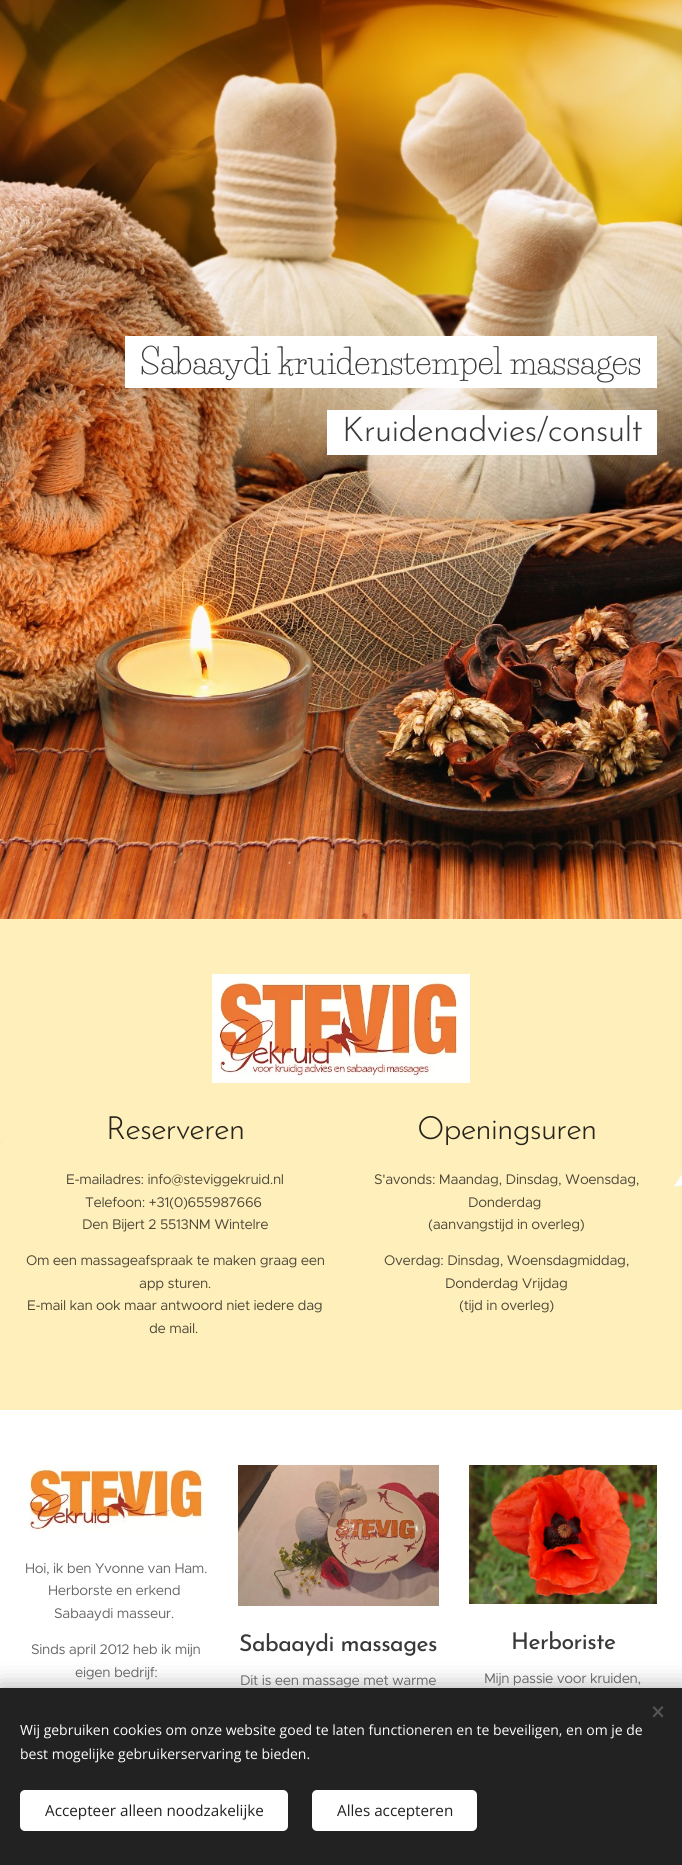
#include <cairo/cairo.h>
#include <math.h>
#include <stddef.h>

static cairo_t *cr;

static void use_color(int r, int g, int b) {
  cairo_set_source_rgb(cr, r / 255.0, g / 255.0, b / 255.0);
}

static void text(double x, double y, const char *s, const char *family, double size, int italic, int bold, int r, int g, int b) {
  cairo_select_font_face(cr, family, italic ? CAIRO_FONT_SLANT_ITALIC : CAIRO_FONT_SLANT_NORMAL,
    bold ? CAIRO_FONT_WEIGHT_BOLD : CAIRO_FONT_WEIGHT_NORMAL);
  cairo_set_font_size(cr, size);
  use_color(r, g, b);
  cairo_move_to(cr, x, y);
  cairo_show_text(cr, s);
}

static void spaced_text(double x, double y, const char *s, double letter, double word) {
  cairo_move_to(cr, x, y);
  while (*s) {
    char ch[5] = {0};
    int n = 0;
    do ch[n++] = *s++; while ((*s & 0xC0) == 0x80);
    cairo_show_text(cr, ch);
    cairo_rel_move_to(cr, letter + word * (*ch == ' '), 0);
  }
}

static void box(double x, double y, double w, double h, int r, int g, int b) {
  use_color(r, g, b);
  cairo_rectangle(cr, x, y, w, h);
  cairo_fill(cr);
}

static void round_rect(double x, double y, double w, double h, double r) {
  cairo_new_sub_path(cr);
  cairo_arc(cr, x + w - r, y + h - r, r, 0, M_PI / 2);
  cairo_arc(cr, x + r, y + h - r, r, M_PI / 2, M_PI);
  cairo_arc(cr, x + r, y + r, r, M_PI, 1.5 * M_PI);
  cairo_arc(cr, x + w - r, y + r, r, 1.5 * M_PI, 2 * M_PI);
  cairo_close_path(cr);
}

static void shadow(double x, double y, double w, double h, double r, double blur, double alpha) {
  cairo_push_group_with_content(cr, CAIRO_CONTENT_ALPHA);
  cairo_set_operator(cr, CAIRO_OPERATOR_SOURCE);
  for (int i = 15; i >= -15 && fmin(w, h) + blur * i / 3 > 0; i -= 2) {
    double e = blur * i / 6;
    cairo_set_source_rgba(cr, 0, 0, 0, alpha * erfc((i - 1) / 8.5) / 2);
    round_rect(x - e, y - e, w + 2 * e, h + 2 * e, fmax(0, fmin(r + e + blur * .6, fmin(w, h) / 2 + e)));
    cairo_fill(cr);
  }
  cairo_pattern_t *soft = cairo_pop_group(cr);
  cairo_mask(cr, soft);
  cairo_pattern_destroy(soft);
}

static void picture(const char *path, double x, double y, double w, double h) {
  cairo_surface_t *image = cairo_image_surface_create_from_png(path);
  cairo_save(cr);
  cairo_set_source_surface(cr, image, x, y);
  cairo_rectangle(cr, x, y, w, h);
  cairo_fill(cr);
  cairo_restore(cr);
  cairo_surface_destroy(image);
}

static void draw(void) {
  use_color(255, 255, 255);
  cairo_paint(cr);
  picture("img_01.png", 0, 0, 682, 919);
  box(125, 336, 15, 52, 255, 255, 255);
  box(140, 336, 517, 52, 255, 255, 255);
  box(327, 410, 15, 45, 255, 255, 255);
  box(342, 410, 315, 45, 255, 255, 255);
  picture("img_02.png", 0, 919, 682, 491);
  picture("img_03.png", 212, 974, 258, 109);
  picture("img_04.png", 29, 1465, 178, 67);
  picture("img_05.png", 238, 1465, 201, 141);
  picture("img_06.png", 469, 1465, 188, 139);
  use_color(0, 0, 0);
  shadow(0, 1688, 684, 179, 0, 12.5, 0.33);
  box(0, 1688, 682, 177, 34, 34, 34);
  use_color(85, 85, 85);
  cairo_new_path(cr);
  cairo_move_to(cr, 652.5, 1716);
  cairo_line_to(cr, 662, 1706);
  cairo_line_to(cr, 663.5, 1707.5);
  cairo_line_to(cr, 654, 1717.5);
  cairo_close_path(cr);
  cairo_fill(cr);
  cairo_new_path(cr);
  cairo_move_to(cr, 654, 1706);
  cairo_line_to(cr, 663.5, 1716);
  cairo_line_to(cr, 662, 1717.5);
  cairo_line_to(cr, 652.5, 1707.5);
  cairo_close_path(cr);
  cairo_fill(cr);
  use_color(255, 255, 255);
  round_rect(20, 1790, 268, 41, 5);
  cairo_fill(cr);
  round_rect(312, 1790, 165, 41, 5);
  cairo_fill(cr);
  text(140, 374, "Sabaaydi kruidenstempel massages", "Life Savers", 34, 0, 0, 57, 57, 57);
  cairo_select_font_face(cr, "Josefin Sans Light", CAIRO_FONT_SLANT_NORMAL, CAIRO_FONT_WEIGHT_NORMAL);
  spaced_text(342, 441, "Kruidenadvies/consult", -0.7, 0);
  cairo_set_font_size(cr, 32);
  use_color(38, 36, 28);
  spaced_text(106, 1139, "Reserveren", -1, 0);
  cairo_select_font_face(cr, "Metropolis", CAIRO_FONT_SLANT_NORMAL, CAIRO_FONT_WEIGHT_NORMAL);
  cairo_set_font_size(cr, 14);
  use_color(76, 72, 56);
  spaced_text(66, 1184, "E-mailadres: info@steviggekruid.nl", -0.35, 0);
  spaced_text(85, 1207, "Telefoon: +31(0)655987666", -0.35, 0);
  spaced_text(82, 1229, "Den Bijert 2 5513NM Wintelre", -0.35, 0);
  spaced_text(26, 1265, "Om een massageafspraak te maken graag een", -0.35, 0);
  spaced_text(139, 1288, "app sturen.", -0.35, 0);
  spaced_text(27, 1310, "E-mail kan ook maar antwoord niet iedere dag", -0.35, 0);
  spaced_text(149, 1333, "de mail.", -0.35, 0);
  cairo_select_font_face(cr, "Josefin Sans Light", CAIRO_FONT_SLANT_NORMAL, CAIRO_FONT_WEIGHT_NORMAL);
  cairo_set_font_size(cr, 32);
  use_color(38, 36, 28);
  spaced_text(417, 1139, "Openingsuren", -1, 0);
  cairo_select_font_face(cr, "Metropolis", CAIRO_FONT_SLANT_NORMAL, CAIRO_FONT_WEIGHT_NORMAL);
  cairo_set_font_size(cr, 14);
  use_color(76, 72, 56);
  spaced_text(374, 1184, "S'avonds: Maandag, Dinsdag, Woensdag,", -0.35, 0);
  spaced_text(468, 1207, "Donderdag", -0.35, 0);
  spaced_text(428, 1229, "(aanvangstijd in overleg)", -0.35, 0);
  spaced_text(384, 1265, "Overdag: Dinsdag, Woensdagmiddag,", -0.35, 0);
  spaced_text(445, 1288, "Donderdag Vrijdag", -0.35, 0);
  spaced_text(459, 1310, "(tijd in overleg)", -0.35, 0);
  use_color(102, 102, 102);
  spaced_text(25, 1573, "Hoi, ik ben Yvonne van Ham.", -0.35, 0);
  spaced_text(48, 1595, "Herborste en erkend", -0.35, 0);
  spaced_text(54, 1618, "Sabaaydi masseur.", -0.35, 0);
  spaced_text(31, 1654, "Sinds april 2012 heb ik mijn", -0.35, 0);
  spaced_text(75, 1677, "eigen bedrijf:", -0.35, 0);
  cairo_select_font_face(cr, "Josefin Sans", CAIRO_FONT_SLANT_NORMAL, CAIRO_FONT_WEIGHT_NORMAL);
  cairo_set_font_size(cr, 23);
  use_color(57, 57, 57);
  spaced_text(239, 1651, "Sabaaydi massages", -0.5, 0);
  cairo_select_font_face(cr, "Metropolis", CAIRO_FONT_SLANT_NORMAL, CAIRO_FONT_WEIGHT_NORMAL);
  cairo_set_font_size(cr, 14);
  use_color(102, 102, 102);
  spaced_text(240, 1685, "Dit is een massage met warme", -0.35, 0);
  cairo_select_font_face(cr, "Josefin Sans", CAIRO_FONT_SLANT_NORMAL, CAIRO_FONT_WEIGHT_NORMAL);
  cairo_set_font_size(cr, 23);
  use_color(57, 57, 57);
  spaced_text(511, 1649, "Herboriste", -0.5, 0);
  cairo_select_font_face(cr, "Metropolis", CAIRO_FONT_SLANT_NORMAL, CAIRO_FONT_WEIGHT_NORMAL);
  cairo_set_font_size(cr, 14);
  use_color(102, 102, 102);
  spaced_text(484, 1683, "Mijn passie voor kruiden,", -0.35, 0);
  text(20, 1735, "Wij gebruiken cookies om onze website goed te laten functioneren en te beveiligen, en om je de", "Open Sans", 14, 0, 0, 255, 255, 255);
  text(20, 1759, "best mogelijke gebruikerservaring te bieden.", "Open Sans", 14, 0, 0, 255, 255, 255);
  text(45, 1816, "Accepteer alleen noodzakelijke", "Open Sans", 15.25, 0, 0, 34, 34, 34);
  text(337, 1816, "Alles accepteren", "Open Sans", 15.25, 0, 0, 34, 34, 34);
}

int main(void) {
  cairo_surface_t *surface = cairo_image_surface_create(CAIRO_FORMAT_RGB24, 682, 1865);
  cr = cairo_create(surface);
  cairo_font_options_t *options = cairo_font_options_create();
  cairo_font_options_set_hint_metrics(options, CAIRO_HINT_METRICS_OFF);
  cairo_font_options_set_hint_style(options, CAIRO_HINT_STYLE_NONE);
  cairo_set_font_options(cr, options);
  cairo_set_miter_limit(cr, 4);
  draw();
  cairo_surface_write_to_png(surface, "out.png");
  cairo_font_options_destroy(options);
  cairo_destroy(cr);
  cairo_surface_destroy(surface);
  return 0;
}
